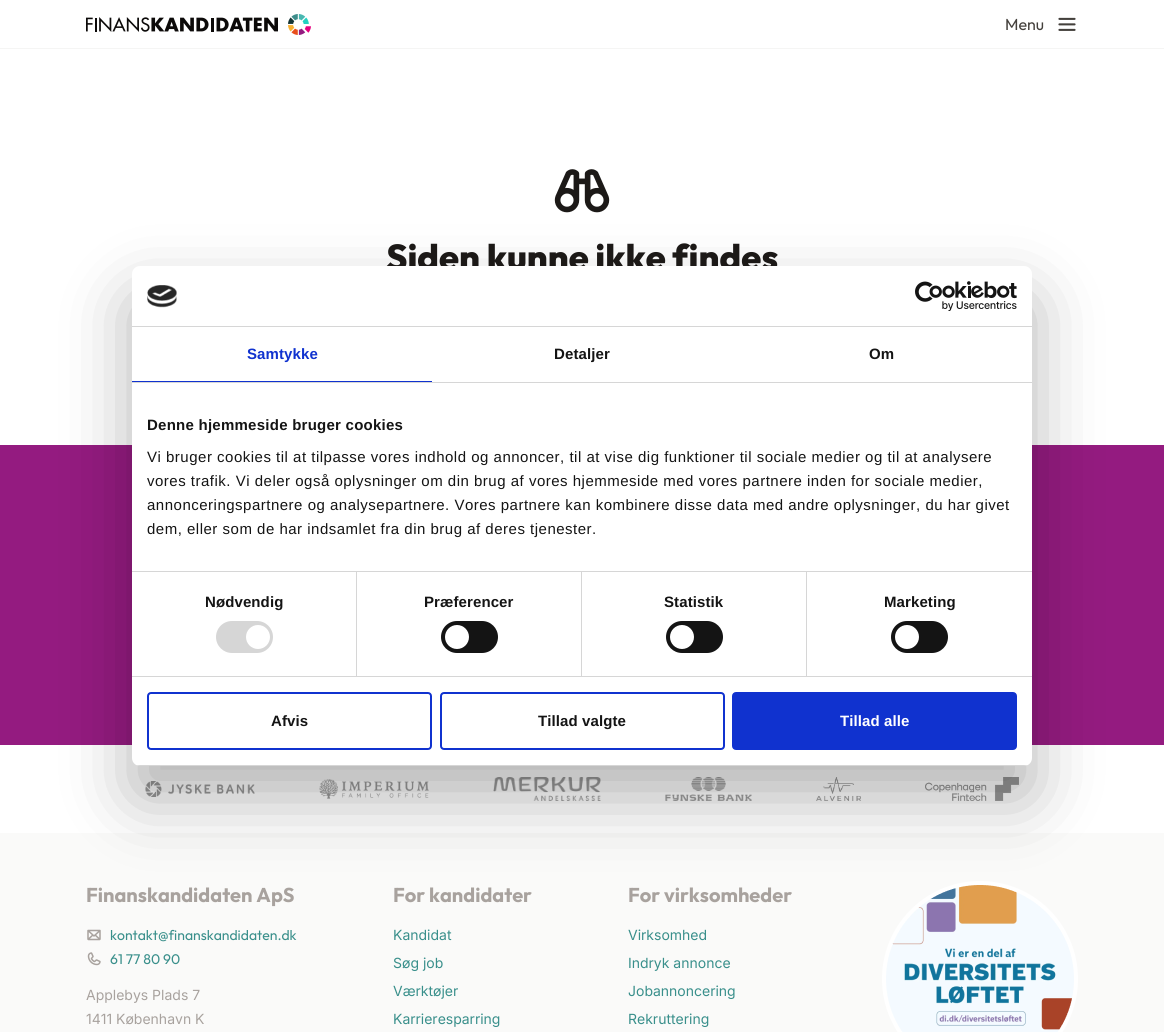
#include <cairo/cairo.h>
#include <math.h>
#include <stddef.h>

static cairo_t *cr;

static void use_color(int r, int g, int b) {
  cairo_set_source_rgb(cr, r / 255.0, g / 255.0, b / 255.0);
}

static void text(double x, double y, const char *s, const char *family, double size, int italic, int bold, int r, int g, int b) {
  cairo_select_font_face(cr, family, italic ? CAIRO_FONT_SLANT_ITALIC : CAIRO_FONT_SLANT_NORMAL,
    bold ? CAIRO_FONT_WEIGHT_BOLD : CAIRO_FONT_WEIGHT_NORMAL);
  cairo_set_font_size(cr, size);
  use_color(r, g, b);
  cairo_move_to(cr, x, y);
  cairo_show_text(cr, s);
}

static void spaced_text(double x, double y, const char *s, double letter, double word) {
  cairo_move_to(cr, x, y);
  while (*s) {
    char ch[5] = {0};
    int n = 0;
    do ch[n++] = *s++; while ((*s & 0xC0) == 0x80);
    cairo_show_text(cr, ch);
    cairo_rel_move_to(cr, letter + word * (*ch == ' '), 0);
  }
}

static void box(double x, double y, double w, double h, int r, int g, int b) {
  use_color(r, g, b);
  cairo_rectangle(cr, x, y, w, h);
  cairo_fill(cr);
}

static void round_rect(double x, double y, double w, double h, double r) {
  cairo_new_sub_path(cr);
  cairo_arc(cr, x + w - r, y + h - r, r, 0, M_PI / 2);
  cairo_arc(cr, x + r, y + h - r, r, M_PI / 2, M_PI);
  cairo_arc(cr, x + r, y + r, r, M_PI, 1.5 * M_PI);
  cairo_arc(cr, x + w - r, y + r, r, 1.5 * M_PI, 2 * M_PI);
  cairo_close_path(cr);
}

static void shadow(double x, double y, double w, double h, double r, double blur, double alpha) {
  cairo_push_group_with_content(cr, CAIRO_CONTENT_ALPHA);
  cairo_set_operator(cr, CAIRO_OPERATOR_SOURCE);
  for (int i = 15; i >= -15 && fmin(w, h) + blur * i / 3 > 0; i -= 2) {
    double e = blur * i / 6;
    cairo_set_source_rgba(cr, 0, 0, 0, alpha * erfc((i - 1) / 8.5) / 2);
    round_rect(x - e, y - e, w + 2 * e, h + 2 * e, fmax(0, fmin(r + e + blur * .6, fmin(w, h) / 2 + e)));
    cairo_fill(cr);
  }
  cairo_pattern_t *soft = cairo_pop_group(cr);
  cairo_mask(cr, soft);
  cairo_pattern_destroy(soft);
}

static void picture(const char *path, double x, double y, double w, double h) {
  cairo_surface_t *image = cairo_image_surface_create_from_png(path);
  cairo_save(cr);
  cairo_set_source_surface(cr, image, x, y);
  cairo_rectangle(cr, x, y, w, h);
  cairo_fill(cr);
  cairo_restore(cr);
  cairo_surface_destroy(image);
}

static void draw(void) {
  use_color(250, 250, 249);
  cairo_paint(cr);
  box(0, 0, 1164, 48, 255, 255, 255);
  box(0, 48, 1164, 1, 245, 245, 244);
  picture("img_01.png", 86, 14, 225, 21);
  picture("img_02.png", 1058, 17, 18, 14);
  box(0, 49, 1164, 396, 255, 255, 255);
  picture("img_03.png", 554, 169, 56, 44);
  box(0, 445, 1164, 300, 148, 27, 128);
  box(0, 745, 1164, 88, 255, 255, 255);
  picture("img_06.png", 145, 781, 110, 16);
  picture("img_07.png", 319, 779, 110, 20);
  picture("img_08.png", 493, 777, 108, 24);
  picture("img_09.png", 665, 777, 87, 24);
  picture("img_10.png", 816, 777, 45, 24);
  picture("img_11.png", 925, 777, 94, 24);
  picture("img_14.png", 882, 881, 196, 151);
  use_color(0, 0, 0);
  shadow(132, 298, 900, 500, 8, 34, 0.3);
  picture("img_12.png", 87, 929, 14, 12);
  picture("img_13.png", 87, 952, 14, 14);
  text(1005, 30, "Menu", "Outfit", 16, 0, 0, 68, 64, 60);
  text(386, 270, "Siden kunne ikke findes", "Outfit ExtraBold", 36, 0, 0, 28, 25, 23);
  use_color(255, 255, 255);
  round_rect(132, 266, 900, 500, 8);
  cairo_fill(cr);
  box(132, 326, 900, 1, 214, 214, 214);
  picture("img_04.png", 147, 285, 30, 23);
  picture("img_05.png", 915, 281, 102, 30);
  box(132, 382, 900, 1, 214, 214, 214);
  box(132, 381, 300, 1, 16, 50, 207);
  cairo_select_font_face(cr, "Liberation Sans", CAIRO_FONT_SLANT_NORMAL, CAIRO_FONT_WEIGHT_BOLD);
  cairo_set_font_size(cr, 15);
  spaced_text(247, 359, "Samtykke", 0.1, 0);
  use_color(20, 20, 20);
  spaced_text(554, 359, "Detaljer", 0.1, 0);
  spaced_text(869, 359, "Om", 0.1, 0);
  box(132, 571, 900, 1, 214, 214, 214);
  use_color(20, 20, 20);
  spaced_text(147, 430, "Denne hjemmeside bruger cookies", 0.25, 0);
  cairo_select_font_face(cr, "Liberation Sans", CAIRO_FONT_SLANT_NORMAL, CAIRO_FONT_WEIGHT_NORMAL);
  spaced_text(147, 462, "Vi bruger cookies til at tilpasse vores indhold og annoncer, til at vise dig funktioner til sociale medier og til at analysere", 0.5, 0);
  spaced_text(147, 486, "vores trafik. Vi deler også oplysninger om din brug af vores hjemmeside med vores partnere inden for sociale medier,", 0.5, 0);
  spaced_text(147, 510, "annonceringspartnere og analysepartnere. Vores partnere kan kombinere disse data med andre oplysninger, du har givet", 0.5, 0);
  spaced_text(147, 534, "dem, eller som de har indsamlet fra din brug af deres tjenester.", 0.5, 0);
  box(132, 676, 900, 1, 214, 214, 214);
  box(356, 572, 1, 104, 214, 214, 214);
  cairo_select_font_face(cr, "Liberation Sans", CAIRO_FONT_SLANT_NORMAL, CAIRO_FONT_WEIGHT_BOLD);
  use_color(20, 20, 20);
  spaced_text(205, 607, "Nødvendig", 0.1, 0);
  use_color(214, 214, 214);
  round_rect(216, 621, 57, 32, 16);
  cairo_fill(cr);
  use_color(255, 255, 255);
  cairo_arc(cr, 258, 637, 12, 0, 2 * M_PI);
  cairo_fill(cr);
  box(581, 572, 1, 104, 214, 214, 214);
  use_color(20, 20, 20);
  spaced_text(424, 607, "Præferencer", 0.1, 0);
  round_rect(441, 621, 57, 32, 16);
  cairo_fill(cr);
  use_color(255, 255, 255);
  cairo_arc(cr, 457, 637, 12, 0, 2 * M_PI);
  cairo_fill(cr);
  box(806, 572, 1, 104, 214, 214, 214);
  use_color(20, 20, 20);
  spaced_text(664, 607, "Statistik", 0.1, 0);
  round_rect(666, 621, 57, 32, 16);
  cairo_fill(cr);
  use_color(255, 255, 255);
  cairo_arc(cr, 682, 637, 12, 0, 2 * M_PI);
  cairo_fill(cr);
  use_color(20, 20, 20);
  spaced_text(884, 607, "Marketing", 0.1, 0);
  round_rect(891, 621, 57, 32, 16);
  cairo_fill(cr);
  use_color(255, 255, 255);
  cairo_arc(cr, 907, 637, 12, 0, 2 * M_PI);
  cairo_fill(cr);
  cairo_save(cr);
  round_rect(132, 266, 900, 500, 8);
  cairo_clip(cr);
  box(132, 765, 900, 1, 214, 214, 214);
  cairo_restore(cr);
  round_rect(148, 693, 283, 56, 3);
  use_color(16, 50, 207);
  cairo_stroke(cr);
  use_color(20, 20, 20);
  spaced_text(271, 726, "Afvis", 0.1, 0);
  round_rect(441, 693, 283, 56, 3);
  use_color(16, 50, 207);
  cairo_stroke(cr);
  use_color(20, 20, 20);
  spaced_text(538, 726, "Tillad valgte", 0.1, 0);
  use_color(16, 50, 207);
  round_rect(733, 693, 283, 56, 3);
  cairo_fill_preserve(cr);
  cairo_stroke(cr);
  use_color(255, 255, 255);
  spaced_text(840, 726, "Tillad alle", 0.1, 0);
  text(86, 902, "Finanskandidaten ApS", "Outfit", 20, 0, 1, 168, 162, 158);
  text(110, 940, "kontakt@finanskandidaten.dk", "Outfit", 14, 0, 0, 57, 143, 139);
  text(110, 964, "61 77 80 90", "Outfit", 14, 0, 0, 57, 143, 139);
  text(86, 1000, "Applebys Plads 7", "Inter", 14, 0, 0, 168, 162, 158);
  text(86, 1024, "1411 København K", "Inter", 14, 0, 0, 168, 162, 158);
  text(393, 902, "For kandidater", "Outfit", 20, 0, 1, 168, 162, 158);
  text(393, 940, "Kandidat", "Inter", 14, 0, 0, 57, 143, 139);
  text(393, 968, "Søg job", "Inter", 14, 0, 0, 57, 143, 139);
  text(393, 996, "Værktøjer", "Inter", 14, 0, 0, 57, 143, 139);
  text(393, 1024, "Karrieresparring", "Inter", 14, 0, 0, 57, 143, 139);
  text(628, 902, "For virksomheder", "Outfit", 20, 0, 1, 168, 162, 158);
  text(628, 940, "Virksomhed", "Inter", 14, 0, 0, 57, 143, 139);
  text(628, 968, "Indryk annonce", "Inter", 14, 0, 0, 57, 143, 139);
  text(628, 996, "Jobannoncering", "Inter", 14, 0, 0, 57, 143, 139);
  text(628, 1024, "Rekruttering", "Inter", 14, 0, 0, 57, 143, 139);
}

int main(void) {
  cairo_surface_t *surface = cairo_image_surface_create(CAIRO_FORMAT_RGB24, 1164, 1032);
  cr = cairo_create(surface);
  cairo_font_options_t *options = cairo_font_options_create();
  cairo_font_options_set_hint_metrics(options, CAIRO_HINT_METRICS_OFF);
  cairo_font_options_set_hint_style(options, CAIRO_HINT_STYLE_NONE);
  cairo_set_font_options(cr, options);
  cairo_set_miter_limit(cr, 4);
  draw();
  cairo_surface_write_to_png(surface, "out.png");
  cairo_font_options_destroy(options);
  cairo_destroy(cr);
  cairo_surface_destroy(surface);
  return 0;
}
